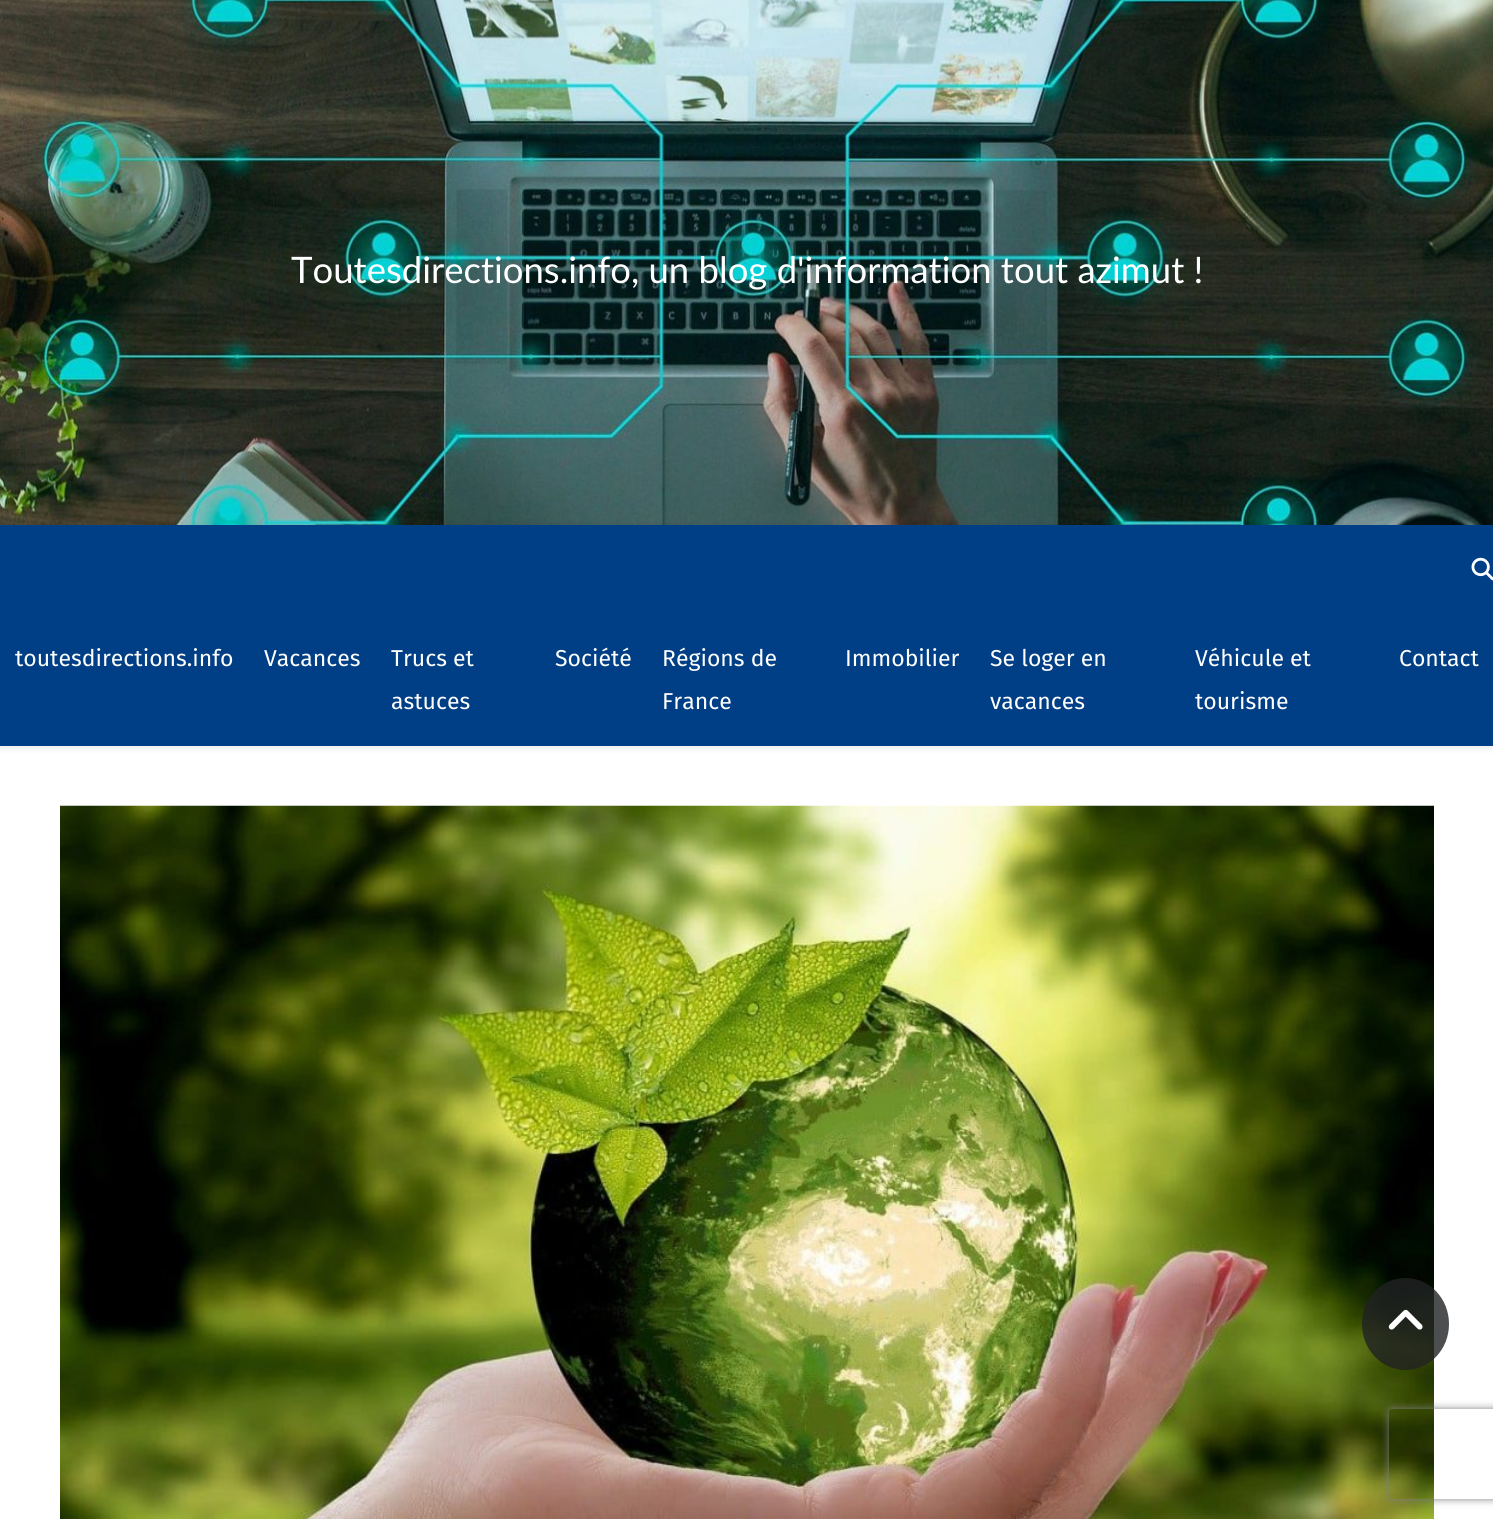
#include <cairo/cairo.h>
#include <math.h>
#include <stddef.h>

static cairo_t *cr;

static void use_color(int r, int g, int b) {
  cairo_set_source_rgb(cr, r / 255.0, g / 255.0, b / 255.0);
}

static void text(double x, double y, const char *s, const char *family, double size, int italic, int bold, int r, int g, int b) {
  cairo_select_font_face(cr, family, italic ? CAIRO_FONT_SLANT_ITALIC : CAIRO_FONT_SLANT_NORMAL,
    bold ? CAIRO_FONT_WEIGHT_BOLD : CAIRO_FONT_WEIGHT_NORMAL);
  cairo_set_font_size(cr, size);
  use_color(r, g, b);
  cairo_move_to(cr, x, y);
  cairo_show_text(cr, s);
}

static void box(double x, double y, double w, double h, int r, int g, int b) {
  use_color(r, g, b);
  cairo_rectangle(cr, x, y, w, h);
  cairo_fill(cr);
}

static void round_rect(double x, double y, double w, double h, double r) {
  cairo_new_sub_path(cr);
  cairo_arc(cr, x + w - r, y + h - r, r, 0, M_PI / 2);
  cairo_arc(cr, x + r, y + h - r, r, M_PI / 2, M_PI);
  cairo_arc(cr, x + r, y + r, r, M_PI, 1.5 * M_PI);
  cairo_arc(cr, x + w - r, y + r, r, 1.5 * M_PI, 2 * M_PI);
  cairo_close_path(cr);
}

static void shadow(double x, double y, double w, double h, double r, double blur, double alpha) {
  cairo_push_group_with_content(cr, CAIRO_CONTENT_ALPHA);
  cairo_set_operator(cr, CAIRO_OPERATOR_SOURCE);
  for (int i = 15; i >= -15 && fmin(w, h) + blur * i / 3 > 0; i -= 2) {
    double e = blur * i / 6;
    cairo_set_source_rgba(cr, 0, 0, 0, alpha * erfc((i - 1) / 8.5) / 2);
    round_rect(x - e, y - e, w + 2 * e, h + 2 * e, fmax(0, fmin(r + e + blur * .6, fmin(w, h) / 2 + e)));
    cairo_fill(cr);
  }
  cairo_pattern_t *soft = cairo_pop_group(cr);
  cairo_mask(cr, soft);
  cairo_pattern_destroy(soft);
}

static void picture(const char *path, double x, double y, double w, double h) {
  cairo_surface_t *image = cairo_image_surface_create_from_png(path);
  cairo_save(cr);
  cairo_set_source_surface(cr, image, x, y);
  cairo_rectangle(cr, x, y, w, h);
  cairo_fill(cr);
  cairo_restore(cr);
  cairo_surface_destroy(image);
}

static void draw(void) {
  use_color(255, 255, 255);
  cairo_paint(cr);
  picture("img_01.png", 0, 0, 1493, 525);
  use_color(0, 0, 0);
  shadow(0, 527, 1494, 220, 0, 4, 0.1);
  box(0, 525, 1493, 221, 0, 63, 134);
  picture("img_02.png", 1471, 557, 22, 24);
  picture("img_03.png", 60, 805, 1374, 714);
  cairo_set_source_rgba(cr, 0.129, 0.133, 0.137, 0.8);
  cairo_new_path(cr);
  cairo_move_to(cr, 1405.5, 1278);
  cairo_curve_to(cr, 1429.5, 1278, 1449, 1298.5, 1449, 1324);
  cairo_curve_to(cr, 1449, 1349.5, 1429.5, 1370, 1405.5, 1370);
  cairo_curve_to(cr, 1381.5, 1370, 1362, 1349.5, 1362, 1324);
  cairo_curve_to(cr, 1362, 1298.5, 1381.5, 1278, 1405.5, 1278);
  cairo_close_path(cr);
  cairo_fill(cr);
  picture("img_04.png", 1388, 1309, 35, 21);
  cairo_save(cr);
  cairo_set_fill_rule(cr, CAIRO_FILL_RULE_EVEN_ODD);
  cairo_new_path(cr);
  cairo_move_to(cr, 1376, 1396);
  cairo_line_to(cr, 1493, 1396);
  cairo_line_to(cr, 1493, 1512);
  cairo_line_to(cr, 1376, 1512);
  cairo_close_path(cr);
  cairo_move_to(cr, 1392, 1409);
  cairo_line_to(cr, 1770, 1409);
  cairo_curve_to(cr, 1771.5, 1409, 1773, 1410.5, 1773, 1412);
  cairo_line_to(cr, 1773, 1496);
  cairo_curve_to(cr, 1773, 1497.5, 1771.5, 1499, 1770, 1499);
  cairo_line_to(cr, 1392, 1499);
  cairo_curve_to(cr, 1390.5, 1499, 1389, 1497.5, 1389, 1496);
  cairo_line_to(cr, 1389, 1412);
  cairo_curve_to(cr, 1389, 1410.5, 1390.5, 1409, 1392, 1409);
  cairo_close_path(cr);
  cairo_clip(cr);
  use_color(128, 128, 128);
  shadow(1389, 1409, 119, 90, 3, 4, 1);
  cairo_restore(cr);
  text(291, 283, "Toutesdirections.info, un blog d'information tout azimut !", "Lato", 36.5, 0, 0, 255, 255, 255);
  text(15, 666, "toutesdirections.info", "Fira Sans", 23, 0, 0, 255, 255, 255);
  text(264, 666, "Vacances", "Fira Sans", 23, 0, 0, 255, 255, 255);
  text(391, 666, "Trucs et", "Fira Sans", 23, 0, 0, 255, 255, 255);
  text(391, 709, "astuces", "Fira Sans", 23, 0, 0, 255, 255, 255);
  text(555, 666, "Société", "Fira Sans", 23, 0, 0, 255, 255, 255);
  text(662, 666, "Régions de", "Fira Sans", 23, 0, 0, 255, 255, 255);
  text(662, 709, "France", "Fira Sans", 23, 0, 0, 255, 255, 255);
  text(845, 666, "Immobilier", "Fira Sans", 23, 0, 0, 255, 255, 255);
  text(990, 666, "Se loger en", "Fira Sans", 23, 0, 0, 255, 255, 255);
  text(990, 709, "vacances", "Fira Sans", 23, 0, 0, 255, 255, 255);
  text(1195, 666, "Véhicule et", "Fira Sans", 23, 0, 0, 255, 255, 255);
  text(1195, 709, "tourisme", "Fira Sans", 23, 0, 0, 255, 255, 255);
  text(1399, 666, "Contact", "Fira Sans", 23, 0, 0, 255, 255, 255);
}

int main(void) {
  cairo_surface_t *surface = cairo_image_surface_create(CAIRO_FORMAT_RGB24, 1493, 1519);
  cr = cairo_create(surface);
  cairo_font_options_t *options = cairo_font_options_create();
  cairo_font_options_set_hint_metrics(options, CAIRO_HINT_METRICS_OFF);
  cairo_font_options_set_hint_style(options, CAIRO_HINT_STYLE_NONE);
  cairo_set_font_options(cr, options);
  cairo_set_miter_limit(cr, 4);
  draw();
  cairo_surface_write_to_png(surface, "out.png");
  cairo_font_options_destroy(options);
  cairo_destroy(cr);
  cairo_surface_destroy(surface);
  return 0;
}
